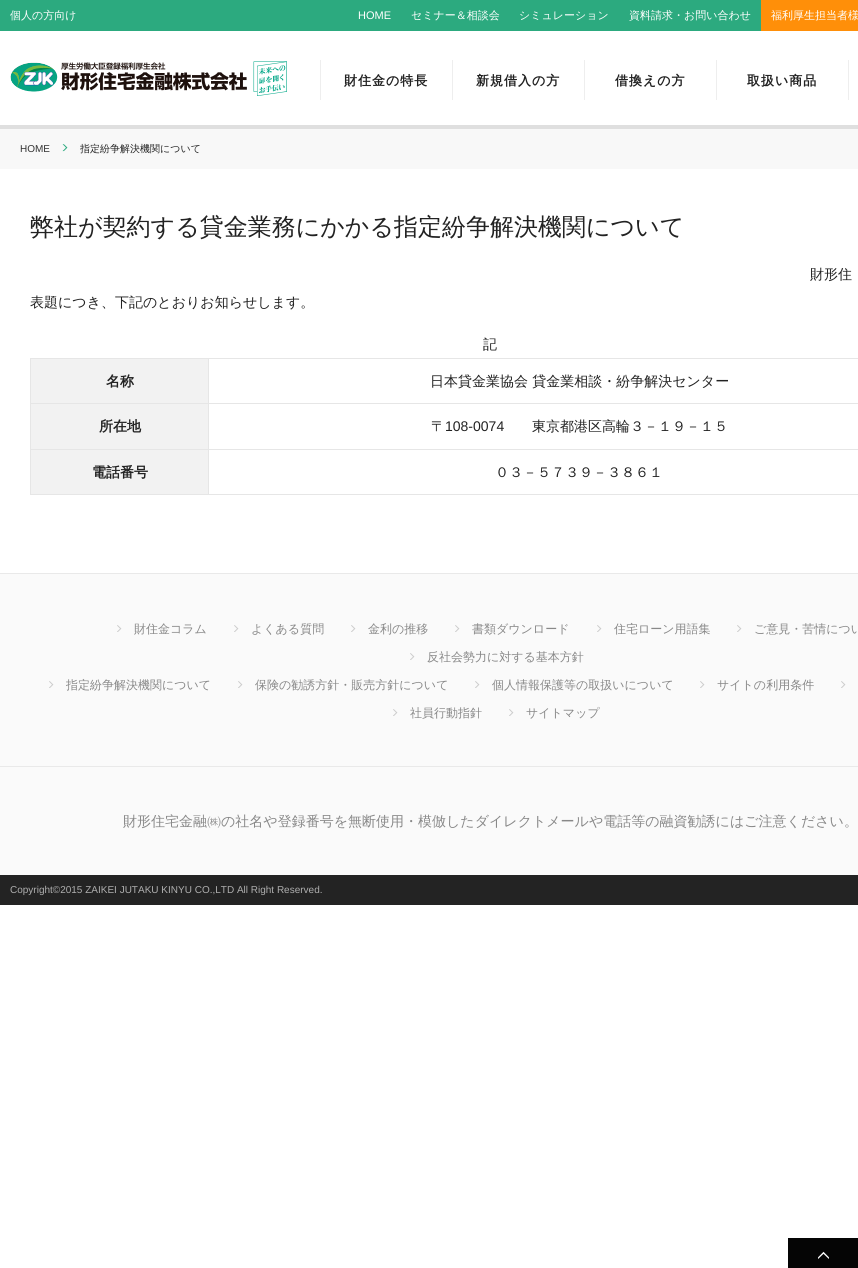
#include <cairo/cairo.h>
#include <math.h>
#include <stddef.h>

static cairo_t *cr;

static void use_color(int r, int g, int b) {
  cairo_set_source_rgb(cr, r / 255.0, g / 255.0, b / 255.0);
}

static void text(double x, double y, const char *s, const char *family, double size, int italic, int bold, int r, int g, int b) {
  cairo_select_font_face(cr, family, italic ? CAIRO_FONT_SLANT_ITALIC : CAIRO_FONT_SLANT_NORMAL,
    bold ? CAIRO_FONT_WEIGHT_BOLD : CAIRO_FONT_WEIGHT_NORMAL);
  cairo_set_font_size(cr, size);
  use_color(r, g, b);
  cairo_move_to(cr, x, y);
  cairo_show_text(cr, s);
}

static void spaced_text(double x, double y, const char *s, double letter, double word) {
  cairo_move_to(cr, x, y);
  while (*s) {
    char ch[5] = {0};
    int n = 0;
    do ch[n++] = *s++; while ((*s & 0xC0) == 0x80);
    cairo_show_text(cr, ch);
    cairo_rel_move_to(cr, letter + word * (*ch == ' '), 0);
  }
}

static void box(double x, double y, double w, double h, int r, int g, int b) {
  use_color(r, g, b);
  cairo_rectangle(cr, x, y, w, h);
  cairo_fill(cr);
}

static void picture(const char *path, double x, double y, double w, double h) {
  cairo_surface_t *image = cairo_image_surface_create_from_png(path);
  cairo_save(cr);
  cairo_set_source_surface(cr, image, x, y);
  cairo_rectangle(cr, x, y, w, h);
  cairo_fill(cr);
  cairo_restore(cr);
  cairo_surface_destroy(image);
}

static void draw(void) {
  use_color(255, 255, 255);
  cairo_paint(cr);
  box(0, 0, 761, 31, 44, 170, 127);
  box(761, 0, 97, 31, 255, 143, 9);
  picture("img_01.png", 10, 61, 277, 35);
  box(0, 125, 858, 4, 223, 223, 223);
  box(320, 60, 1, 40, 238, 238, 238);
  box(452, 60, 1, 40, 238, 238, 238);
  box(584, 60, 1, 40, 238, 238, 238);
  box(716, 60, 1, 40, 238, 238, 238);
  box(848, 60, 1, 40, 238, 238, 238);
  box(0, 129, 858, 40, 248, 248, 248);
  picture("img_02.png", 62, 144, 6, 8);
  box(31, 359, 177, 44, 242, 242, 242);
  box(208, 358, 650, 1, 230, 230, 230);
  box(208, 403, 650, 1, 230, 230, 230);
  box(208, 449, 650, 1, 230, 230, 230);
  box(208, 494, 650, 1, 230, 230, 230);
  box(208, 449, 1, 46, 230, 230, 230);
  box(30, 449, 179, 1, 230, 230, 230);
  box(208, 403, 1, 47, 230, 230, 230);
  box(30, 403, 179, 1, 230, 230, 230);
  box(208, 358, 1, 46, 230, 230, 230);
  box(30, 358, 179, 1, 230, 230, 230);
  box(30, 494, 179, 1, 230, 230, 230);
  box(30, 449, 1, 46, 230, 230, 230);
  box(30, 403, 1, 47, 230, 230, 230);
  box(30, 358, 1, 46, 230, 230, 230);
  box(31, 404, 177, 45, 242, 242, 242);
  box(31, 450, 177, 44, 242, 242, 242);
  box(0, 574, 858, 301, 250, 250, 250);
  box(0, 573, 858, 1, 233, 233, 233);
  picture("img_03.png", 117, 625, 5, 7);
  picture("img_03.png", 234, 625, 5, 7);
  picture("img_03.png", 351, 625, 5, 7);
  picture("img_03.png", 455, 625, 5, 7);
  picture("img_03.png", 597, 625, 5, 7);
  picture("img_03.png", 737, 625, 5, 7);
  picture("img_03.png", 410, 653, 5, 7);
  picture("img_03.png", 49, 681, 5, 7);
  picture("img_03.png", 238, 681, 5, 7);
  picture("img_03.png", 475, 681, 5, 7);
  picture("img_03.png", 700, 681, 5, 7);
  picture("img_03.png", 841, 681, 5, 7);
  picture("img_03.png", 393, 709, 5, 7);
  picture("img_03.png", 509, 709, 5, 7);
  box(0, 766, 858, 1, 233, 233, 233);
  box(0, 875, 858, 30, 35, 35, 35);
  box(788, 1238, 70, 30, 5, 5, 5);
  picture("img_04.png", 818, 1251, 11, 8);
  text(10, 19, "個人の方向け", "WenQuanYi Zen Hei Medium", 11, 0, 0, 255, 255, 255);
  text(358, 19, "HOME", "Liberation Sans", 11, 0, 0, 255, 255, 255);
  text(411, 19, "セミナー＆相談会", "WenQuanYi Zen Hei Medium", 11, 0, 0, 255, 255, 255);
  text(519, 19, "シミュレーション", "WenQuanYi Zen Hei Medium", 11, 0, 0, 255, 255, 255);
  text(629, 19, "資料請求・お問い合わせ", "WenQuanYi Zen Hei Medium", 11, 0, 0, 255, 255, 255);
  text(771, 19, "福利厚生担当者様", "WenQuanYi Zen Hei Medium", 11, 0, 0, 255, 255, 255);
  cairo_select_font_face(cr, "WenQuanYi Zen Hei", CAIRO_FONT_SLANT_NORMAL, CAIRO_FONT_WEIGHT_BOLD);
  cairo_set_font_size(cr, 13);
  use_color(34, 34, 34);
  spaced_text(344, 85, "財住金の特長", 1, 0);
  spaced_text(476, 85, "新規借入の方", 1, 0);
  spaced_text(615, 85, "借換えの方", 1, 0);
  spaced_text(747, 85, "取扱い商品", 1, 0);
  text(20, 152, "HOME", "Liberation Sans", 10, 0, 0, 51, 51, 51);
  text(80, 152, "指定紛争解決機関について", "WenQuanYi Zen Hei Medium", 10, 0, 0, 34, 34, 34);
  text(30, 235, "弊社が契約する貸金業務にかかる指定紛争解決機関について", "WenQuanYi Zen Hei Medium", 24, 0, 0, 34, 34, 34);
  text(810, 279, "財形住", "WenQuanYi Zen Hei Medium", 14, 0, 0, 34, 34, 34);
  text(30, 307, "表題につき、下記のとおりお知らせします。", "WenQuanYi Zen Hei Medium", 14, 0, 0, 34, 34, 34);
  text(483, 349, "記", "WenQuanYi Zen Hei Medium", 14, 0, 0, 34, 34, 34);
  text(106, 386, "名称", "WenQuanYi Zen Hei", 14, 0, 1, 34, 34, 34);
  text(430, 386, "日本貸金業協会 貸金業相談・紛争解決センター", "WenQuanYi Zen Hei Medium", 14, 0, 0, 34, 34, 34);
  text(99, 431, "所在地", "WenQuanYi Zen Hei", 14, 0, 1, 34, 34, 34);
  text(431, 431, "〒", "WenQuanYi Zen Hei Medium", 14, 0, 0, 34, 34, 34);
  text(445, 431, "108-0074", "Liberation Sans", 14, 0, 0, 34, 34, 34);
  text(532, 431, "東京都港区高輪３－１９－１５", "WenQuanYi Zen Hei Medium", 14, 0, 0, 34, 34, 34);
  text(92, 477, "電話番号", "WenQuanYi Zen Hei", 14, 0, 1, 34, 34, 34);
  text(495, 477, "０３－５７３９－３８６１", "WenQuanYi Zen Hei Medium", 14, 0, 0, 34, 34, 34);
  text(134, 633, "財住金コラム", "WenQuanYi Zen Hei Medium", 12, 0, 0, 136, 136, 136);
  text(251, 633, "よくある質問", "WenQuanYi Zen Hei Medium", 12, 0, 0, 136, 136, 136);
  text(368, 633, "金利の推移", "WenQuanYi Zen Hei Medium", 12, 0, 0, 136, 136, 136);
  text(472, 633, "書類ダウンロード", "WenQuanYi Zen Hei Medium", 12, 0, 0, 136, 136, 136);
  text(614, 633, "住宅ローン用語集", "WenQuanYi Zen Hei Medium", 12, 0, 0, 136, 136, 136);
  text(754, 633, "ご意見・苦情につい", "WenQuanYi Zen Hei Medium", 12, 0, 0, 136, 136, 136);
  text(427, 661, "反社会勢力に対する基本方針", "WenQuanYi Zen Hei Medium", 12, 0, 0, 136, 136, 136);
  text(66, 689, "指定紛争解決機関について", "WenQuanYi Zen Hei Medium", 12, 0, 0, 136, 136, 136);
  text(255, 689, "保険の勧誘方針・販売方針について", "WenQuanYi Zen Hei Medium", 12, 0, 0, 136, 136, 136);
  text(492, 689, "個人情報保護等の取扱いについて", "WenQuanYi Zen Hei Medium", 12, 0, 0, 136, 136, 136);
  text(717, 689, "サイトの利用条件", "WenQuanYi Zen Hei Medium", 12, 0, 0, 136, 136, 136);
  text(410, 717, "社員行動指針", "WenQuanYi Zen Hei Medium", 12, 0, 0, 136, 136, 136);
  text(526, 717, "サイトマップ", "WenQuanYi Zen Hei Medium", 12, 0, 0, 136, 136, 136);
  text(123, 826, "財形住宅金融㈱の社名や登録番号を無断使用・模倣したダイレクトメールや電話等の融資勧誘にはご注意ください。", "WenQuanYi Zen Hei Medium", 14, 0, 0, 136, 136, 136);
  text(10, 893, "Copyright©2015 ZAIKEI JUTAKU KINYU CO.,LTD All Right Reserved.", "Liberation Sans", 10, 0, 0, 175, 175, 175);
}

int main(void) {
  cairo_surface_t *surface = cairo_image_surface_create(CAIRO_FORMAT_RGB24, 858, 1268);
  cr = cairo_create(surface);
  cairo_font_options_t *options = cairo_font_options_create();
  cairo_font_options_set_hint_metrics(options, CAIRO_HINT_METRICS_OFF);
  cairo_font_options_set_hint_style(options, CAIRO_HINT_STYLE_NONE);
  cairo_set_font_options(cr, options);
  cairo_set_miter_limit(cr, 4);
  draw();
  cairo_surface_write_to_png(surface, "out.png");
  cairo_font_options_destroy(options);
  cairo_destroy(cr);
  cairo_surface_destroy(surface);
  return 0;
}
